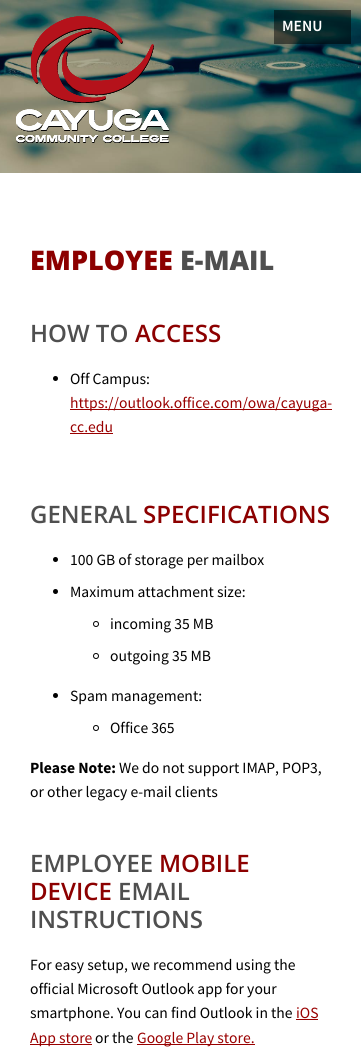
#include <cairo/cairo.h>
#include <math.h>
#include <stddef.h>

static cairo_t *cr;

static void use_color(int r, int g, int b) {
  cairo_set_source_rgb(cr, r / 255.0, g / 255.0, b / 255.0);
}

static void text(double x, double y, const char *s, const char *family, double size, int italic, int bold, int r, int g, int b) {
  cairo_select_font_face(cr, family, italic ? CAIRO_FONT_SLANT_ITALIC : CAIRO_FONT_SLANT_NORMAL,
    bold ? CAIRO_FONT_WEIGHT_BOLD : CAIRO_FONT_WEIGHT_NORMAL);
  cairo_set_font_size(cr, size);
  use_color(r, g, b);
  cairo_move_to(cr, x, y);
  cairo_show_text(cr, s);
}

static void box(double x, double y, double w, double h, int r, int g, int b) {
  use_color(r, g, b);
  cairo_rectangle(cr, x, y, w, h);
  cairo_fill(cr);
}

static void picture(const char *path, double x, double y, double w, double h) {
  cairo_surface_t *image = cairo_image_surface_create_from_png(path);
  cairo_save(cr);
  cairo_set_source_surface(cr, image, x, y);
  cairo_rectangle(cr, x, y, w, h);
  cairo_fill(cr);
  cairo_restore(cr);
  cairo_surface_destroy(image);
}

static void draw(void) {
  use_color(255, 255, 255);
  cairo_paint(cr);
  picture("img_01.png", 0, 0, 361, 173);
  picture("img_02.png", 16, 16, 154, 127);
  picture("img_03.png", 16, 16, 154, 127);
  cairo_set_source_rgba(cr, 0, 0, 0, 0.5);
  cairo_rectangle(cr, 274, 10, 77, 34);
  cairo_fill(cr);
  use_color(0, 0, 0);
  cairo_arc(cr, 55.5, 378.5, 2.5, 0, 2 * M_PI);
  cairo_fill(cr);
  box(70, 409, 262, 1, 153, 0, 0);
  box(70, 433, 43, 1, 153, 0, 0);
  use_color(0, 0, 0);
  cairo_arc(cr, 55.5, 559.5, 2.5, 0, 2 * M_PI);
  cairo_fill(cr);
  cairo_arc(cr, 55.5, 591.5, 2.5, 0, 2 * M_PI);
  cairo_fill(cr);
  cairo_arc(cr, 96, 624, 2.5, 0, 2 * M_PI);
  cairo_set_line_width(cr, 1);
  cairo_stroke(cr);
  cairo_arc(cr, 96, 656, 2.5, 0, 2 * M_PI);
  cairo_stroke(cr);
  cairo_arc(cr, 55.5, 695.5, 2.5, 0, 2 * M_PI);
  cairo_fill(cr);
  cairo_arc(cr, 96, 728, 2.5, 0, 2 * M_PI);
  cairo_stroke(cr);
  box(296, 1019, 22, 1, 153, 0, 0);
  box(30, 1044, 62, 1, 153, 0, 0);
  box(137, 1044, 118, 1, 153, 0, 0);
  text(282, 31, "MENU", "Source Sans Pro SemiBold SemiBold", 15.6, 0, 0, 255, 255, 255);
  text(30, 270, "EMPLOYEE", "Open Sans ExtraBold", 27, 0, 0, 140, 0, 0);
  text(180, 270, "E-MAIL", "Open Sans ExtraBold", 27, 0, 0, 79, 79, 79);
  text(30, 342, "HOW TO", "Open Sans SemiBold", 24, 0, 0, 79, 79, 79);
  text(135, 342, "ACCESS", "Open Sans SemiBold", 24, 0, 0, 140, 0, 0);
  text(70, 384, "Off Campus:", "Source Sans Pro", 15.6, 0, 0, 0, 0, 0);
  text(70, 408, "https://outlook.office.com/owa/cayuga-", "Source Sans Pro", 15.6, 0, 0, 153, 0, 0);
  text(70, 432, "cc.edu", "Source Sans Pro", 15.6, 0, 0, 153, 0, 0);
  text(30, 523, "GENERAL", "Open Sans SemiBold", 24, 0, 0, 79, 79, 79);
  text(143, 523, "SPECIFICATIONS", "Open Sans SemiBold", 24, 0, 0, 140, 0, 0);
  text(70, 565, "100 GB of storage per mailbox", "Source Sans Pro", 15.6, 0, 0, 0, 0, 0);
  text(70, 597, "Maximum attachment size:", "Source Sans Pro", 15.6, 0, 0, 0, 0, 0);
  text(110, 629, "incoming 35 MB", "Source Sans Pro", 15.6, 0, 0, 0, 0, 0);
  text(110, 661, "outgoing 35 MB", "Source Sans Pro", 15.6, 0, 0, 0, 0, 0);
  text(70, 701, "Spam management:", "Source Sans Pro", 15.6, 0, 0, 0, 0, 0);
  text(110, 733, "Office 365", "Source Sans Pro", 15.6, 0, 0, 0, 0, 0);
  text(30, 773, "Please Note:", "Source Sans Pro", 15.6, 0, 1, 0, 0, 0);
  text(119, 773, "We do not support IMAP, POP3,", "Source Sans Pro", 15.6, 0, 0, 0, 0, 0);
  text(30, 797, "or other legacy e-mail clients", "Source Sans Pro", 15.6, 0, 0, 0, 0, 0);
  text(30, 872, "EMPLOYEE", "Open Sans SemiBold", 24, 0, 0, 79, 79, 79);
  text(159, 872, "MOBILE", "Open Sans SemiBold", 24, 0, 0, 140, 0, 0);
  text(30, 900, "DEVICE", "Open Sans SemiBold", 24, 0, 0, 140, 0, 0);
  text(118, 900, "EMAIL", "Open Sans SemiBold", 24, 0, 0, 79, 79, 79);
  text(30, 928, "INSTRUCTIONS", "Open Sans SemiBold", 24, 0, 0, 79, 79, 79);
  text(30, 970, "For easy setup, we recommend using the", "Source Sans Pro", 15.6, 0, 0, 0, 0, 0);
  text(30, 994, "official Microsoft Outlook app for your", "Source Sans Pro", 15.6, 0, 0, 0, 0, 0);
  text(30, 1018, "smartphone. You can find Outlook in the", "Source Sans Pro", 15.6, 0, 0, 0, 0, 0);
  text(296, 1018, "iOS", "Source Sans Pro", 15.6, 0, 0, 153, 0, 0);
  text(30, 1043, "App store", "Source Sans Pro", 15.6, 0, 0, 153, 0, 0);
  text(95, 1043, "or the", "Source Sans Pro", 15.6, 0, 0, 0, 0, 0);
  text(137, 1043, "Google Play store.", "Source Sans Pro", 15.6, 0, 0, 153, 0, 0);
}

int main(void) {
  cairo_surface_t *surface = cairo_image_surface_create(CAIRO_FORMAT_RGB24, 361, 1058);
  cr = cairo_create(surface);
  cairo_font_options_t *options = cairo_font_options_create();
  cairo_font_options_set_hint_metrics(options, CAIRO_HINT_METRICS_OFF);
  cairo_font_options_set_hint_style(options, CAIRO_HINT_STYLE_NONE);
  cairo_set_font_options(cr, options);
  cairo_set_miter_limit(cr, 4);
  draw();
  cairo_surface_write_to_png(surface, "out.png");
  cairo_font_options_destroy(options);
  cairo_destroy(cr);
  cairo_surface_destroy(surface);
  return 0;
}
